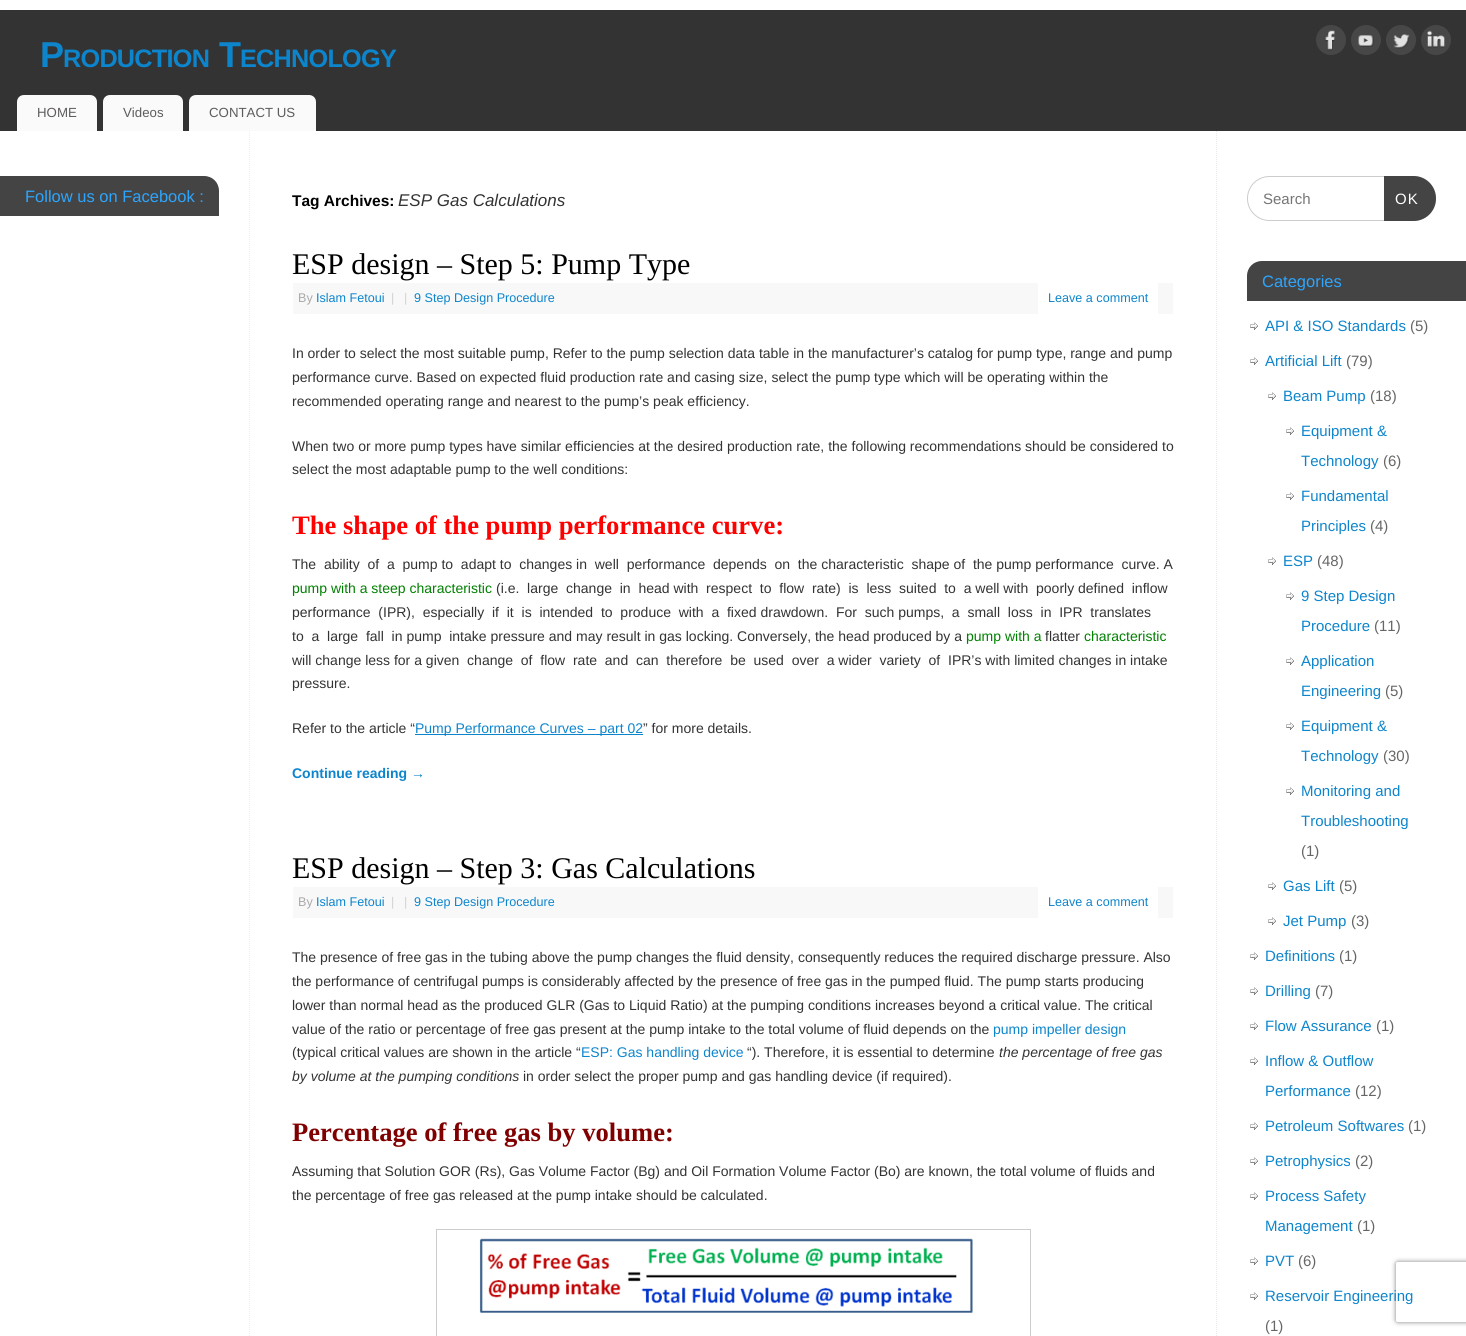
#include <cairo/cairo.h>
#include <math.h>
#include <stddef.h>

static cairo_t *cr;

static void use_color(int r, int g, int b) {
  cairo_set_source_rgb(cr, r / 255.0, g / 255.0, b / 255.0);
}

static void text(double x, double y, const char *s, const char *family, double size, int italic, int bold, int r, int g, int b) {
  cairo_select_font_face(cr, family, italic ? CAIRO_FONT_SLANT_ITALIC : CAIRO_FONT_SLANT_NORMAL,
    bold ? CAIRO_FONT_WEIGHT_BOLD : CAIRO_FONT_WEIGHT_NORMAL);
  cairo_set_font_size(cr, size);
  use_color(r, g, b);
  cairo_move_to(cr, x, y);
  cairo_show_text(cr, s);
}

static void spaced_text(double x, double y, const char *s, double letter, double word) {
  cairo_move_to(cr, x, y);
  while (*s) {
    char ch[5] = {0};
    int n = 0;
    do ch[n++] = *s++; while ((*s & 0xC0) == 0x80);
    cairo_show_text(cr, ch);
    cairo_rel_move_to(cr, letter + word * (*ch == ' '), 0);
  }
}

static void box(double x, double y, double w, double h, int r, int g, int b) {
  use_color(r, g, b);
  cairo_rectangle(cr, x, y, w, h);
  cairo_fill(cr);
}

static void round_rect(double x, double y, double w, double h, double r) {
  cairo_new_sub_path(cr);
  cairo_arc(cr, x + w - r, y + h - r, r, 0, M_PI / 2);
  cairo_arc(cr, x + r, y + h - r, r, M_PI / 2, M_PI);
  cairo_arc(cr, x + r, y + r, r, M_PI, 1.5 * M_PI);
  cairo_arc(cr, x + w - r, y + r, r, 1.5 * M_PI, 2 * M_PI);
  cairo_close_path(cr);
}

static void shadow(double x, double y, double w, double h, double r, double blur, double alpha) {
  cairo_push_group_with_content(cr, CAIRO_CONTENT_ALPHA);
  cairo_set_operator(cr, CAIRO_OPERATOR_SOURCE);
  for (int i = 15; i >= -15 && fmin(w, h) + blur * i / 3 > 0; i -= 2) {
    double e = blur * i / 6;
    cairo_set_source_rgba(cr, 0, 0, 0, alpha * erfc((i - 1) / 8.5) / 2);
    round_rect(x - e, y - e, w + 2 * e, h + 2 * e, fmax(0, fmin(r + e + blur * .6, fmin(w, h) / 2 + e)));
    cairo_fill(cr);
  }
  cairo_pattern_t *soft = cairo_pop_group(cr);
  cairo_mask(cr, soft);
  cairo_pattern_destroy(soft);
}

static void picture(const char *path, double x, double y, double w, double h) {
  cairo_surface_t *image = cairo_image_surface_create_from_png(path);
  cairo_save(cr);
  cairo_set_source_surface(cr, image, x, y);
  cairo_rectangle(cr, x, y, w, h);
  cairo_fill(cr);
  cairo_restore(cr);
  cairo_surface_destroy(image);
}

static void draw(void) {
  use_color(255, 255, 255);
  cairo_paint(cr);
  box(0, 10, 1466, 121, 51, 51, 51);
  use_color(71, 71, 71);
  cairo_arc(cr, 1331, 40, 15, 0, 2 * M_PI);
  cairo_fill(cr);
  picture("img_01.png", 1325, 30, 10, 21);
  cairo_arc(cr, 1366, 40, 15, 0, 2 * M_PI);
  cairo_fill(cr);
  picture("img_02.png", 1358, 35, 16, 12);
  cairo_arc(cr, 1401, 40, 15, 0, 2 * M_PI);
  cairo_fill(cr);
  picture("img_03.png", 1393, 34, 17, 15);
  cairo_arc(cr, 1436, 40, 15, 0, 2 * M_PI);
  cairo_fill(cr);
  picture("img_04.png", 1427, 30, 18, 18);
  use_color(250, 250, 250);
  cairo_new_path(cr);
  cairo_move_to(cr, 24, 95);
  cairo_line_to(cr, 90, 95);
  cairo_curve_to(cr, 94, 95, 97, 98, 97, 102);
  cairo_line_to(cr, 97, 131);
  cairo_line_to(cr, 17, 131);
  cairo_line_to(cr, 17, 102);
  cairo_curve_to(cr, 17, 98, 20, 95, 24, 95);
  cairo_close_path(cr);
  cairo_fill(cr);
  cairo_new_path(cr);
  cairo_move_to(cr, 110, 95);
  cairo_line_to(cr, 176, 95);
  cairo_curve_to(cr, 180, 95, 183, 98, 183, 102);
  cairo_line_to(cr, 183, 131);
  cairo_line_to(cr, 103, 131);
  cairo_line_to(cr, 103, 102);
  cairo_curve_to(cr, 103, 98, 106, 95, 110, 95);
  cairo_close_path(cr);
  cairo_fill(cr);
  cairo_new_path(cr);
  cairo_move_to(cr, 196, 95);
  cairo_line_to(cr, 309, 95);
  cairo_curve_to(cr, 313, 95, 316, 98, 316, 102);
  cairo_line_to(cr, 316, 131);
  cairo_line_to(cr, 189, 131);
  cairo_line_to(cr, 189, 102);
  cairo_curve_to(cr, 189, 98, 192, 95, 196, 95);
  cairo_close_path(cr);
  cairo_fill(cr);
  cairo_new_path(cr);
  cairo_move_to(cr, 249.5, 131);
  cairo_line_to(cr, 249.5, 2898);
  use_color(238, 238, 238);
  cairo_set_line_width(cr, 1);
  cairo_set_dash(cr, (double[]){1, 1}, 2, 0);
  cairo_stroke(cr);
  use_color(68, 68, 68);
  cairo_new_path(cr);
  cairo_move_to(cr, 0, 176);
  cairo_line_to(cr, 204, 176);
  cairo_curve_to(cr, 212.5, 176, 219, 182.5, 219, 191);
  cairo_line_to(cr, 219, 216);
  cairo_line_to(cr, 0, 216);
  cairo_close_path(cr);
  cairo_fill(cr);
  box(293, 283, 880, 31, 248, 248, 248);
  box(1038, 283, 120, 31, 255, 255, 255);
  box(415, 734, 228, 1, 13, 133, 204);
  box(293, 887, 880, 31, 248, 248, 248);
  box(1038, 887, 120, 31, 255, 255, 255);
  cairo_rectangle(cr, 436.5, 1229.5, 594, 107);
  use_color(204, 204, 204);
  cairo_set_dash(cr, NULL, 0, 0);
  cairo_stroke(cr);
  picture("img_05.png", 479, 1238, 494, 75);
  cairo_new_path(cr);
  cairo_move_to(cr, 1216.5, 131);
  cairo_line_to(cr, 1216.5, 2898);
  use_color(234, 234, 234);
  cairo_set_dash(cr, (double[]){1, 1}, 2, 0);
  cairo_stroke(cr);
  round_rect(1247.5, 176.5, 188, 44, 22);
  use_color(204, 204, 204);
  cairo_set_dash(cr, NULL, 0, 0);
  cairo_stroke(cr);
  use_color(68, 68, 68);
  cairo_new_path(cr);
  cairo_move_to(cr, 1384, 176);
  cairo_line_to(cr, 1413.5, 176);
  cairo_curve_to(cr, 1426, 176, 1436, 186, 1436, 198.5);
  cairo_curve_to(cr, 1436, 211, 1426, 221, 1413.5, 221);
  cairo_line_to(cr, 1384, 221);
  cairo_close_path(cr);
  cairo_fill(cr);
  cairo_new_path(cr);
  cairo_move_to(cr, 1262, 261);
  cairo_line_to(cr, 1466, 261);
  cairo_line_to(cr, 1466, 301);
  cairo_line_to(cr, 1247, 301);
  cairo_line_to(cr, 1247, 276);
  cairo_curve_to(cr, 1247, 267.5, 1253.5, 261, 1262, 261);
  cairo_close_path(cr);
  cairo_fill(cr);
  picture("img_06.png", 1250, 322, 8, 8);
  picture("img_06.png", 1250, 357, 8, 8);
  picture("img_06.png", 1268, 392, 8, 8);
  picture("img_06.png", 1286, 427, 8, 8);
  picture("img_06.png", 1286, 492, 8, 8);
  picture("img_06.png", 1268, 557, 8, 8);
  picture("img_06.png", 1286, 592, 8, 8);
  picture("img_06.png", 1286, 657, 8, 8);
  picture("img_06.png", 1286, 722, 8, 8);
  picture("img_06.png", 1286, 787, 8, 8);
  picture("img_06.png", 1268, 882, 8, 8);
  picture("img_06.png", 1268, 917, 8, 8);
  picture("img_06.png", 1250, 952, 8, 8);
  picture("img_06.png", 1250, 987, 8, 8);
  picture("img_06.png", 1250, 1022, 8, 8);
  picture("img_06.png", 1250, 1057, 8, 8);
  picture("img_06.png", 1250, 1122, 8, 8);
  picture("img_06.png", 1250, 1157, 8, 8);
  picture("img_06.png", 1250, 1192, 8, 8);
  picture("img_06.png", 1250, 1257, 8, 8);
  picture("img_06.png", 1250, 1292, 8, 8);
  cairo_save(cr);
  cairo_set_fill_rule(cr, CAIRO_FILL_RULE_EVEN_ODD);
  cairo_new_path(cr);
  cairo_move_to(cr, 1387, 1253);
  cairo_line_to(cr, 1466, 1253);
  cairo_line_to(cr, 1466, 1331);
  cairo_line_to(cr, 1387, 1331);
  cairo_close_path(cr);
  cairo_move_to(cr, 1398, 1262);
  cairo_line_to(cr, 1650, 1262);
  cairo_curve_to(cr, 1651, 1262, 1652, 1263, 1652, 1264);
  cairo_line_to(cr, 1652, 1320);
  cairo_curve_to(cr, 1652, 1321, 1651, 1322, 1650, 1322);
  cairo_line_to(cr, 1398, 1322);
  cairo_curve_to(cr, 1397, 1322, 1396, 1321, 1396, 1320);
  cairo_line_to(cr, 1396, 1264);
  cairo_curve_to(cr, 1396, 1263, 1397, 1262, 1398, 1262);
  cairo_close_path(cr);
  cairo_clip(cr);
  use_color(128, 128, 128);
  shadow(1396, 1262, 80, 60, 2, 2.5, 1);
  cairo_restore(cr);
  cairo_select_font_face(cr, "Liberation Sans", CAIRO_FONT_SLANT_NORMAL, CAIRO_FONT_WEIGHT_BOLD);
  cairo_set_font_size(cr, 36);
  use_color(13, 133, 204);
  spaced_text(40, 67, "P", -0.75, 0);
  cairo_set_font_size(cr, 25.25);
  spaced_text(63, 67, "RODUCTION", -0.75, 0);
  cairo_set_font_size(cr, 36);
  spaced_text(219, 67, "T", -0.75, 0);
  cairo_set_font_size(cr, 25.25);
  spaced_text(240, 67, "ECHNOLOGY", -0.75, 0);
  text(37, 117, "HOME", "Liberation Sans", 13.25, 0, 0, 95, 91, 91);
  text(123, 117, "Videos", "Liberation Sans", 13.25, 0, 0, 95, 91, 91);
  text(209, 117, "CONTACT US", "Liberation Sans", 13.25, 0, 0, 95, 91, 91);
  text(25, 202, "Follow us on Facebook :", "Liberation Sans", 16.5, 0, 0, 46, 165, 253);
  text(292, 206, "Tag Archives:", "Liberation Sans", 15.5, 0, 1, 0, 0, 0);
  text(398, 206, "ESP Gas Calculations", "Liberation Sans", 17, 1, 0, 51, 51, 51);
  text(292, 274, "ESP design – Step 5: Pump Type", "Liberation Serif", 30, 0, 0, 0, 0, 0);
  text(298, 302, "By", "Liberation Sans", 12.6, 0, 0, 170, 170, 170);
  text(316, 302, "Islam Fetoui", "Liberation Sans", 12.6, 0, 0, 13, 133, 204);
  text(391, 302, "|", "Liberation Sans", 12.6, 0, 0, 209, 209, 209);
  text(404, 302, "|", "Liberation Sans", 12.6, 0, 0, 209, 209, 209);
  text(414, 302, "9 Step Design Procedure", "Liberation Sans", 12.6, 0, 0, 13, 133, 204);
  text(1048, 302, "Leave a comment", "Liberation Sans", 12.6, 0, 0, 13, 133, 204);
  text(292, 358, "In order to select the most suitable pump, Refer to the pump selection data table in the manufacturer’s catalog for pump type, range and pump", "Liberation Sans", 14, 0, 0, 51, 51, 51);
  text(292, 382, "performance curve. Based on expected fluid production rate and casing size, select the pump type which will be operating within the", "Liberation Sans", 14, 0, 0, 51, 51, 51);
  text(292, 406, "recommended operating range and nearest to the pump’s peak efficiency.", "Liberation Sans", 14, 0, 0, 51, 51, 51);
  text(292, 451, "When two or more pump types have similar efficiencies at the desired production rate, the following recommendations should be considered to", "Liberation Sans", 14, 0, 0, 51, 51, 51);
  text(292, 474, "select the most adaptable pump to the well conditions:", "Liberation Sans", 14, 0, 0, 51, 51, 51);
  text(292, 534, "The shape of the pump performance curve:", "Liberation Serif", 26.6, 0, 1, 255, 0, 0);
  text(292, 569, "The  ability  of  a  pump to  adapt to  changes in  well  performance  depends  on  the characteristic  shape of  the pump performance  curve. A", "Liberation Sans", 14, 0, 0, 51, 51, 51);
  text(292, 593, "pump with a steep characteristic", "Liberation Sans", 14, 0, 0, 0, 128, 0);
  text(496, 593, "(i.e.  large  change  in  head with  respect  to  flow  rate)  is  less  suited  to  a well with  poorly defined  inflow", "Liberation Sans", 14, 0, 0, 51, 51, 51);
  text(292, 617, "performance  (IPR),  especially  if  it  is  intended  to  produce  with  a  fixed drawdown.  For  such pumps,  a  small  loss  in  IPR  translates", "Liberation Sans", 14, 0, 0, 51, 51, 51);
  text(292, 641, "to  a  large  fall  in pump  intake pressure and may result in gas locking. Conversely, the head produced by a", "Liberation Sans", 14, 0, 0, 51, 51, 51);
  text(966, 641, "pump with a", "Liberation Sans", 14, 0, 0, 0, 128, 0);
  text(1045, 641, "flatter", "Liberation Sans", 14, 0, 0, 51, 51, 51);
  text(1084, 641, "characteristic", "Liberation Sans", 14, 0, 0, 0, 128, 0);
  text(292, 665, "will change less for a given  change  of  flow  rate  and  can  therefore  be  used  over  a wider  variety  of  IPR’s with limited changes in intake", "Liberation Sans", 14, 0, 0, 51, 51, 51);
  text(292, 688, "pressure.", "Liberation Sans", 14, 0, 0, 51, 51, 51);
  text(292, 733, "Refer to the article “", "Liberation Sans", 14, 0, 0, 51, 51, 51);
  text(415, 733, "Pump Performance Curves – part 02", "Liberation Sans", 14, 0, 0, 13, 133, 204);
  text(643, 733, "” for more details.", "Liberation Sans", 14, 0, 0, 51, 51, 51);
  text(292, 778, "Continue reading →", "Liberation Sans", 14, 0, 1, 13, 133, 204);
  text(292, 878, "ESP design – Step 3: Gas Calculations", "Liberation Serif", 30, 0, 0, 0, 0, 0);
  text(298, 906, "By", "Liberation Sans", 12.6, 0, 0, 170, 170, 170);
  text(316, 906, "Islam Fetoui", "Liberation Sans", 12.6, 0, 0, 13, 133, 204);
  text(391, 906, "|", "Liberation Sans", 12.6, 0, 0, 209, 209, 209);
  text(404, 906, "|", "Liberation Sans", 12.6, 0, 0, 209, 209, 209);
  text(414, 906, "9 Step Design Procedure", "Liberation Sans", 12.6, 0, 0, 13, 133, 204);
  text(1048, 906, "Leave a comment", "Liberation Sans", 12.6, 0, 0, 13, 133, 204);
  text(292, 962, "The presence of free gas in the tubing above the pump changes the fluid density, consequently reduces the required discharge pressure. Also", "Liberation Sans", 14, 0, 0, 51, 51, 51);
  text(292, 986, "the performance of centrifugal pumps is considerably affected by the presence of free gas in the pumped fluid. The pump starts producing", "Liberation Sans", 14, 0, 0, 51, 51, 51);
  text(292, 1010, "lower than normal head as the produced GLR (Gas to Liquid Ratio) at the pumping conditions increases beyond a critical value. The critical", "Liberation Sans", 14, 0, 0, 51, 51, 51);
  text(292, 1034, "value of the ratio or percentage of free gas present at the pump intake to the total volume of fluid depends on the", "Liberation Sans", 14, 0, 0, 51, 51, 51);
  text(993, 1034, "pump impeller design", "Liberation Sans", 14, 0, 0, 13, 133, 204);
  text(292, 1057, "(typical critical values are shown in the article “", "Liberation Sans", 14, 0, 0, 51, 51, 51);
  text(581, 1057, "ESP: Gas handling device", "Liberation Sans", 14, 0, 0, 13, 133, 204);
  text(747, 1057, "“). Therefore, it is essential to determine", "Liberation Sans", 14, 0, 0, 51, 51, 51);
  text(999, 1057, "the percentage of free gas", "Liberation Sans", 14, 1, 0, 51, 51, 51);
  text(292, 1081, "by volume at the pumping conditions", "Liberation Sans", 14, 1, 0, 51, 51, 51);
  text(523, 1081, "in order select the proper pump and gas handling device (if required).", "Liberation Sans", 14, 0, 0, 51, 51, 51);
  text(292, 1141, "Percentage of free gas by volume:", "Liberation Serif", 26.6, 0, 1, 128, 0, 0);
  text(292, 1176, "Assuming that Solution GOR (Rs), Gas Volume Factor (Bg) and Oil Formation Volume Factor (Bo) are known, the total volume of fluids and", "Liberation Sans", 14, 0, 0, 51, 51, 51);
  text(292, 1200, "the percentage of free gas released at the pump intake should be calculated.", "Liberation Sans", 14, 0, 0, 51, 51, 51);
  text(1263, 204, "Search", "Liberation Sans", 15, 0, 0, 117, 117, 117);
  use_color(255, 255, 255);
  spaced_text(1395, 204, "OK", 1, 0);
  text(1262, 287, "Categories", "Liberation Sans", 16.5, 0, 0, 46, 165, 253);
  text(1265, 331, "API & ISO Standards", "Liberation Sans", 15, 0, 0, 13, 133, 204);
  text(1410, 331, "(5)", "Liberation Sans", 15, 0, 0, 102, 102, 102);
  text(1265, 366, "Artificial Lift", "Liberation Sans", 15, 0, 0, 13, 133, 204);
  text(1346, 366, "(79)", "Liberation Sans", 15, 0, 0, 102, 102, 102);
  text(1283, 401, "Beam Pump", "Liberation Sans", 15, 0, 0, 13, 133, 204);
  text(1370, 401, "(18)", "Liberation Sans", 15, 0, 0, 102, 102, 102);
  text(1301, 436, "Equipment &", "Liberation Sans", 15, 0, 0, 13, 133, 204);
  text(1301, 466, "Technology", "Liberation Sans", 15, 0, 0, 13, 133, 204);
  text(1383, 466, "(6)", "Liberation Sans", 15, 0, 0, 102, 102, 102);
  text(1301, 501, "Fundamental", "Liberation Sans", 15, 0, 0, 13, 133, 204);
  text(1301, 531, "Principles", "Liberation Sans", 15, 0, 0, 13, 133, 204);
  text(1370, 531, "(4)", "Liberation Sans", 15, 0, 0, 102, 102, 102);
  text(1283, 566, "ESP", "Liberation Sans", 15, 0, 0, 13, 133, 204);
  text(1317, 566, "(48)", "Liberation Sans", 15, 0, 0, 102, 102, 102);
  text(1301, 601, "9 Step Design", "Liberation Sans", 15, 0, 0, 13, 133, 204);
  text(1301, 631, "Procedure", "Liberation Sans", 15, 0, 0, 13, 133, 204);
  text(1374, 631, "(11)", "Liberation Sans", 15, 0, 0, 102, 102, 102);
  text(1301, 666, "Application", "Liberation Sans", 15, 0, 0, 13, 133, 204);
  text(1301, 696, "Engineering", "Liberation Sans", 15, 0, 0, 13, 133, 204);
  text(1385, 696, "(5)", "Liberation Sans", 15, 0, 0, 102, 102, 102);
  text(1301, 731, "Equipment &", "Liberation Sans", 15, 0, 0, 13, 133, 204);
  text(1301, 761, "Technology", "Liberation Sans", 15, 0, 0, 13, 133, 204);
  text(1383, 761, "(30)", "Liberation Sans", 15, 0, 0, 102, 102, 102);
  text(1301, 796, "Monitoring and", "Liberation Sans", 15, 0, 0, 13, 133, 204);
  text(1301, 826, "Troubleshooting", "Liberation Sans", 15, 0, 0, 13, 133, 204);
  text(1301, 856, "(1)", "Liberation Sans", 15, 0, 0, 102, 102, 102);
  text(1283, 891, "Gas Lift", "Liberation Sans", 15, 0, 0, 13, 133, 204);
  text(1339, 891, "(5)", "Liberation Sans", 15, 0, 0, 102, 102, 102);
  text(1283, 926, "Jet Pump", "Liberation Sans", 15, 0, 0, 13, 133, 204);
  text(1351, 926, "(3)", "Liberation Sans", 15, 0, 0, 102, 102, 102);
  text(1265, 961, "Definitions", "Liberation Sans", 15, 0, 0, 13, 133, 204);
  text(1339, 961, "(1)", "Liberation Sans", 15, 0, 0, 102, 102, 102);
  text(1265, 996, "Drilling", "Liberation Sans", 15, 0, 0, 13, 133, 204);
  text(1315, 996, "(7)", "Liberation Sans", 15, 0, 0, 102, 102, 102);
  text(1265, 1031, "Flow Assurance", "Liberation Sans", 15, 0, 0, 13, 133, 204);
  text(1376, 1031, "(1)", "Liberation Sans", 15, 0, 0, 102, 102, 102);
  text(1265, 1066, "Inflow & Outflow", "Liberation Sans", 15, 0, 0, 13, 133, 204);
  text(1265, 1096, "Performance", "Liberation Sans", 15, 0, 0, 13, 133, 204);
  text(1355, 1096, "(12)", "Liberation Sans", 15, 0, 0, 102, 102, 102);
  text(1265, 1131, "Petroleum Softwares", "Liberation Sans", 15, 0, 0, 13, 133, 204);
  text(1408, 1131, "(1)", "Liberation Sans", 15, 0, 0, 102, 102, 102);
  text(1265, 1166, "Petrophysics", "Liberation Sans", 15, 0, 0, 13, 133, 204);
  text(1355, 1166, "(2)", "Liberation Sans", 15, 0, 0, 102, 102, 102);
  text(1265, 1201, "Process Safety", "Liberation Sans", 15, 0, 0, 13, 133, 204);
  text(1265, 1231, "Management", "Liberation Sans", 15, 0, 0, 13, 133, 204);
  text(1357, 1231, "(1)", "Liberation Sans", 15, 0, 0, 102, 102, 102);
  text(1265, 1266, "PVT", "Liberation Sans", 15, 0, 0, 13, 133, 204);
  text(1298, 1266, "(6)", "Liberation Sans", 15, 0, 0, 102, 102, 102);
  text(1265, 1301, "Reservoir Engineering", "Liberation Sans", 15, 0, 0, 13, 133, 204);
  text(1265, 1331, "(1)", "Liberation Sans", 15, 0, 0, 102, 102, 102);
}

int main(void) {
  cairo_surface_t *surface = cairo_image_surface_create(CAIRO_FORMAT_RGB24, 1466, 1336);
  cr = cairo_create(surface);
  cairo_font_options_t *options = cairo_font_options_create();
  cairo_font_options_set_hint_metrics(options, CAIRO_HINT_METRICS_OFF);
  cairo_font_options_set_hint_style(options, CAIRO_HINT_STYLE_NONE);
  cairo_set_font_options(cr, options);
  cairo_set_miter_limit(cr, 4);
  draw();
  cairo_surface_write_to_png(surface, "out.png");
  cairo_font_options_destroy(options);
  cairo_destroy(cr);
  cairo_surface_destroy(surface);
  return 0;
}
